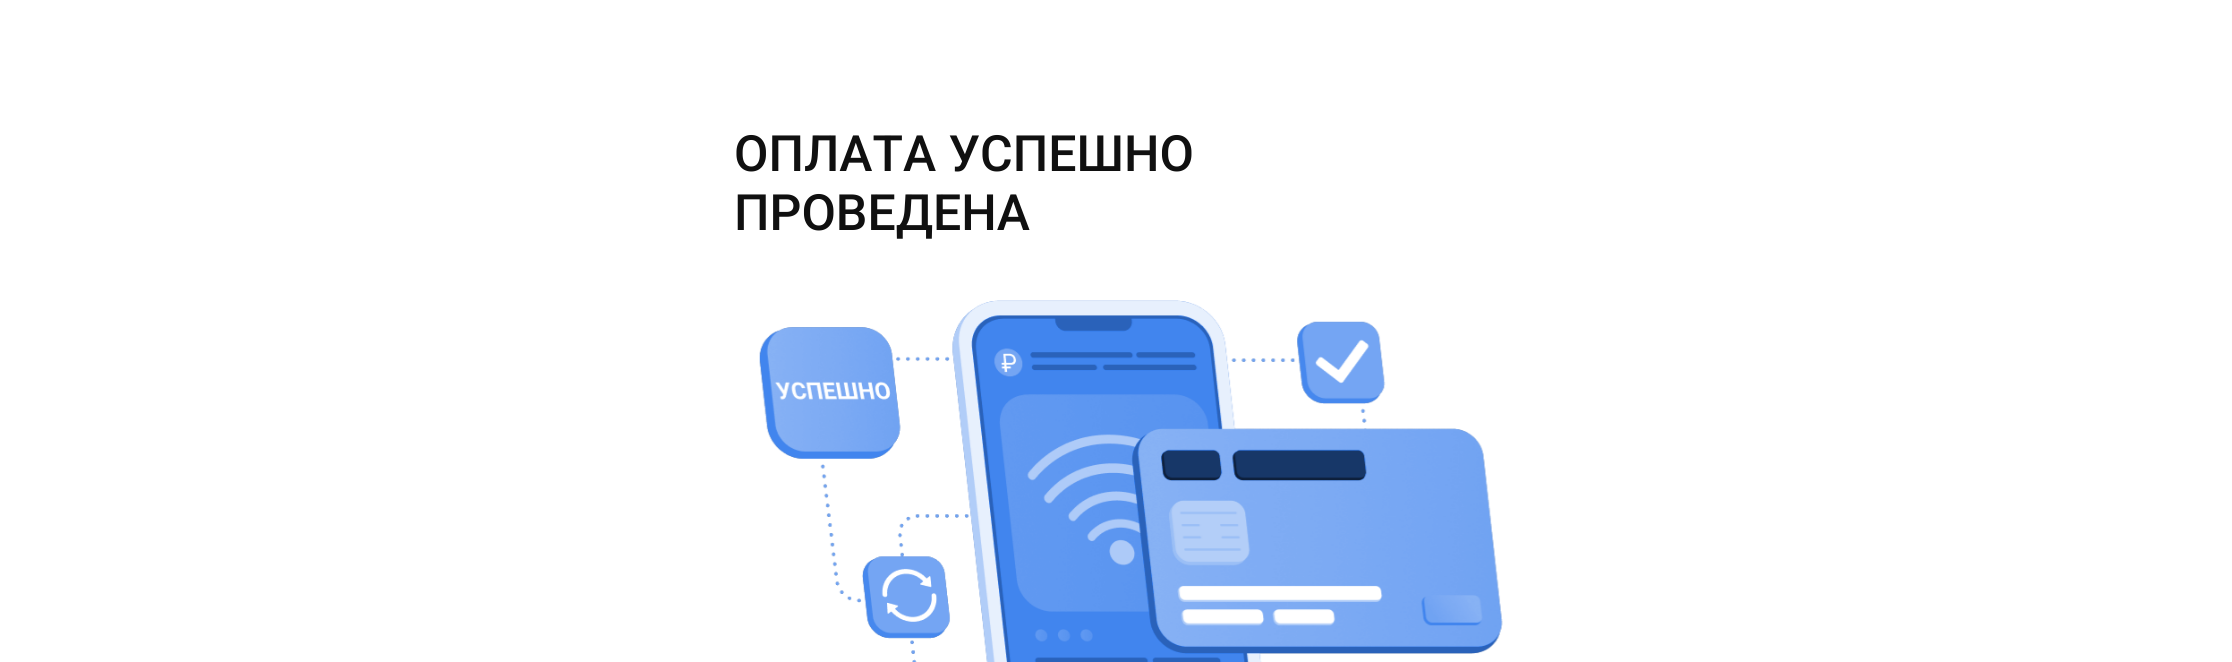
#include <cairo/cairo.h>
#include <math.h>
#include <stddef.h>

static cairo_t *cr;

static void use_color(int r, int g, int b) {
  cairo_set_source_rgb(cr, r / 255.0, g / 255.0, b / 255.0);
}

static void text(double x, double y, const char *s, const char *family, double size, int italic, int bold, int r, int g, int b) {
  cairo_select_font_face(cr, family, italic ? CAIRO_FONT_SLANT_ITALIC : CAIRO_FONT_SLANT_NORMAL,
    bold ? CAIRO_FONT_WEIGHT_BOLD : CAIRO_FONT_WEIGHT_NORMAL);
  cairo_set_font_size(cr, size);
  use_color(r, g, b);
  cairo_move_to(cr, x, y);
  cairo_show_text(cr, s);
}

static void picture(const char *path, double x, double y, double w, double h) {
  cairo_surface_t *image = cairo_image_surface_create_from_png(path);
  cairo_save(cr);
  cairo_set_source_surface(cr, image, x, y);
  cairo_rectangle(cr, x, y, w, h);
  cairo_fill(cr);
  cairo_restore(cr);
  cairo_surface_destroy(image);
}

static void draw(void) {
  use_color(255, 255, 255);
  cairo_paint(cr);
  picture("img_01.png", 759, 300, 744, 362);
  text(734, 171, "ОПЛАТА УСПЕШНО", "Roboto Medium", 50, 0, 0, 16, 16, 16);
  text(734, 230, "ПРОВЕДЕНА", "Roboto Medium", 50, 0, 0, 16, 16, 16);
}

int main(void) {
  cairo_surface_t *surface = cairo_image_surface_create(CAIRO_FORMAT_RGB24, 2232, 662);
  cr = cairo_create(surface);
  cairo_font_options_t *options = cairo_font_options_create();
  cairo_font_options_set_hint_metrics(options, CAIRO_HINT_METRICS_OFF);
  cairo_font_options_set_hint_style(options, CAIRO_HINT_STYLE_NONE);
  cairo_set_font_options(cr, options);
  cairo_set_miter_limit(cr, 4);
  draw();
  cairo_surface_write_to_png(surface, "out.png");
  cairo_font_options_destroy(options);
  cairo_destroy(cr);
  cairo_surface_destroy(surface);
  return 0;
}
